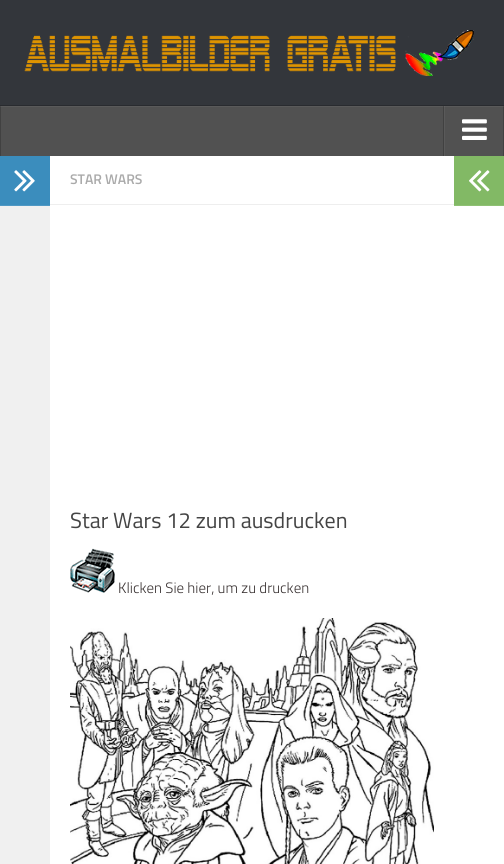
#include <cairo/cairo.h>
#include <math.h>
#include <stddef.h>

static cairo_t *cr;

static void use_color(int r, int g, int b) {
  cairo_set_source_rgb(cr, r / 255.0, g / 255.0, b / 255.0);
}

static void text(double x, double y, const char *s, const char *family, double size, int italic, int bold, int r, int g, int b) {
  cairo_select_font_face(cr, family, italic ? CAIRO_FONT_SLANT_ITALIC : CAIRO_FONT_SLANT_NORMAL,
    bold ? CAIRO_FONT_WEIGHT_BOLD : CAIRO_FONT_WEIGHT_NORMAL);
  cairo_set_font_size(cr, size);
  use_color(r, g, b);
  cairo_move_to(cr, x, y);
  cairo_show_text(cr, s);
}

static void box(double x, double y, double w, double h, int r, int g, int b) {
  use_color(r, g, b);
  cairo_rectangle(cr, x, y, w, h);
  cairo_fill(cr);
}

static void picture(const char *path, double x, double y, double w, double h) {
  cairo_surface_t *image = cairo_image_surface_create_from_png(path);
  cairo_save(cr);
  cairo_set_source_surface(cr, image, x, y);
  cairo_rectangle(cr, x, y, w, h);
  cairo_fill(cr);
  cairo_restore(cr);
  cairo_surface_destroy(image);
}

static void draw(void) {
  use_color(255, 255, 255);
  cairo_paint(cr);
  box(0, 0, 504, 105, 51, 54, 59);
  picture("img_01.png", 24, 30, 450, 46);
  box(0, 105, 504, 1, 41, 43, 47);
  box(1, 107, 502, 49, 81, 81, 81);
  box(444, 106, 1, 50, 90, 90, 90);
  box(443, 106, 1, 50, 65, 65, 65);
  box(0, 106, 504, 1, 90, 90, 90);
  box(444, 106, 1, 1, 98, 98, 98);
  box(443, 106, 1, 1, 72, 72, 72);
  box(503, 106, 1, 50, 65, 65, 65);
  box(503, 106, 1, 1, 75, 75, 75);
  box(0, 106, 1, 50, 65, 65, 65);
  box(0, 106, 1, 1, 75, 75, 75);
  picture("img_02.png", 462, 119, 25, 21);
  box(0, 206, 50, 658, 240, 240, 240);
  box(0, 156, 50, 49, 59, 141, 189);
  box(0, 205, 50, 1, 79, 152, 196);
  picture("img_03.png", 14, 170, 21, 22);
  box(50, 204, 404, 1, 238, 238, 238);
  picture("img_04.png", 70, 548, 45, 45);
  picture("img_05.png", 70, 618, 364, 246);
  box(454, 156, 50, 49, 130, 185, 101);
  box(454, 205, 50, 1, 143, 192, 116);
  picture("img_06.png", 469, 170, 21, 22);
  text(70, 184, "STAR WARS", "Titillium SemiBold", 14, 0, 0, 170, 170, 170);
  text(70, 528, "Star Wars 12 zum ausdrucken", "Titillium", 22, 0, 0, 68, 68, 68);
  text(118, 593, "Klicken Sie hier, um zu drucken", "Titillium Light", 15, 0, 0, 57, 50, 50);
}

int main(void) {
  cairo_surface_t *surface = cairo_image_surface_create(CAIRO_FORMAT_RGB24, 504, 864);
  cr = cairo_create(surface);
  cairo_font_options_t *options = cairo_font_options_create();
  cairo_font_options_set_hint_metrics(options, CAIRO_HINT_METRICS_OFF);
  cairo_font_options_set_hint_style(options, CAIRO_HINT_STYLE_NONE);
  cairo_set_font_options(cr, options);
  cairo_set_miter_limit(cr, 4);
  draw();
  cairo_surface_write_to_png(surface, "out.png");
  cairo_font_options_destroy(options);
  cairo_destroy(cr);
  cairo_surface_destroy(surface);
  return 0;
}
